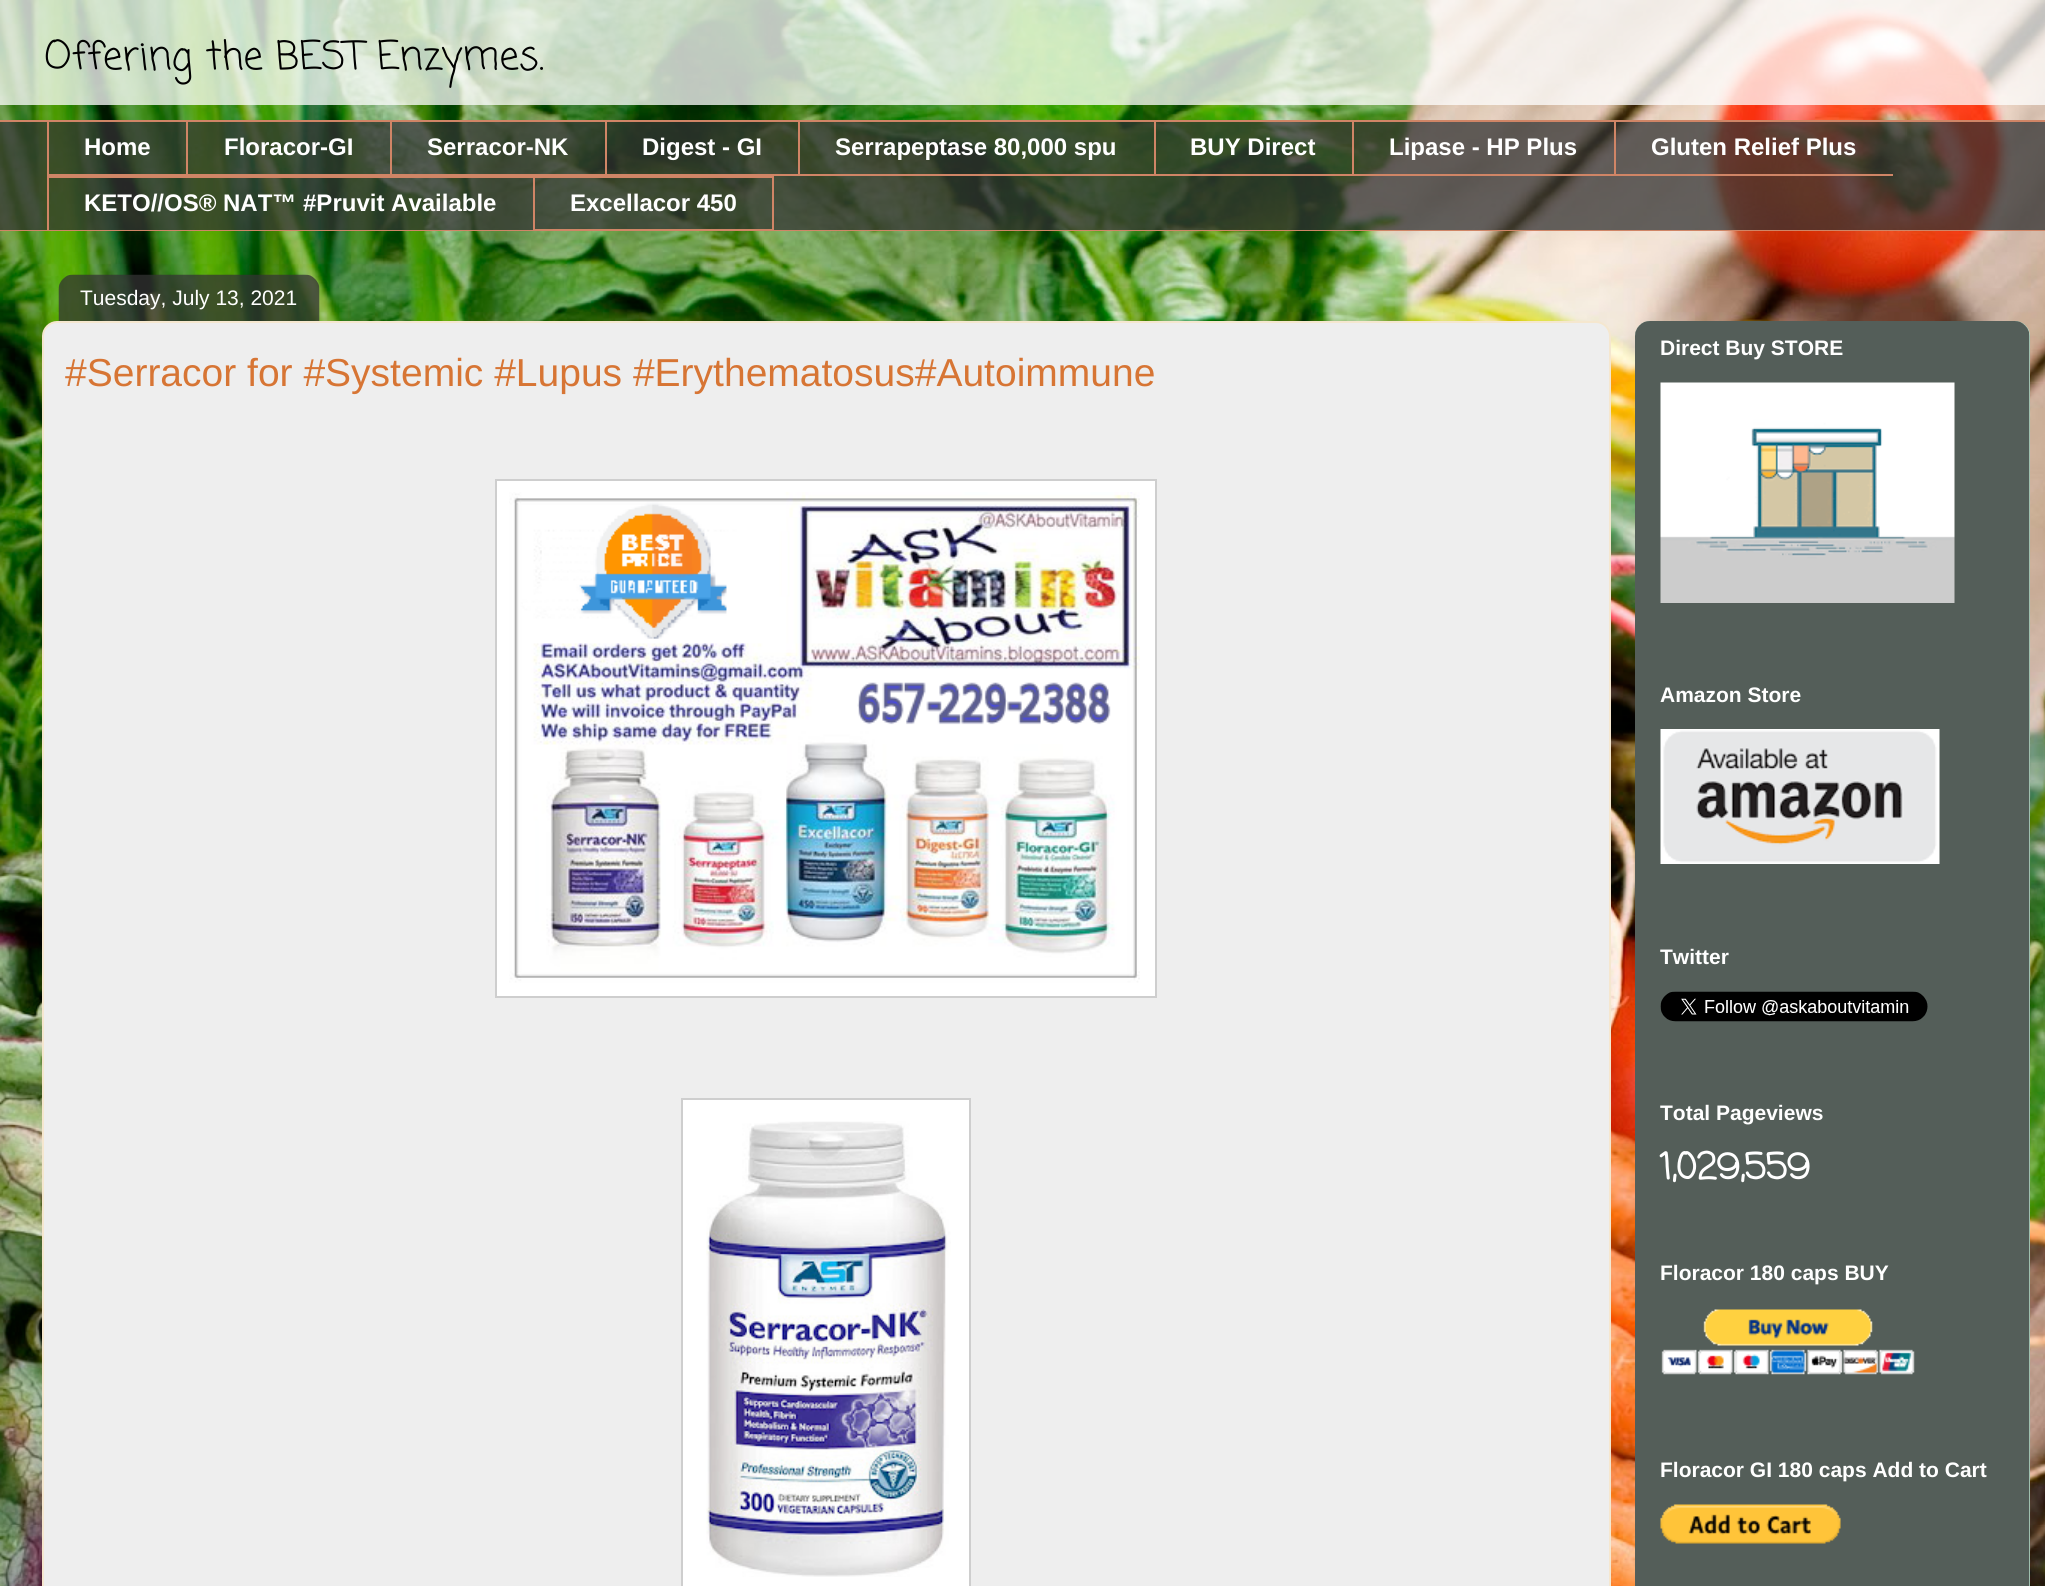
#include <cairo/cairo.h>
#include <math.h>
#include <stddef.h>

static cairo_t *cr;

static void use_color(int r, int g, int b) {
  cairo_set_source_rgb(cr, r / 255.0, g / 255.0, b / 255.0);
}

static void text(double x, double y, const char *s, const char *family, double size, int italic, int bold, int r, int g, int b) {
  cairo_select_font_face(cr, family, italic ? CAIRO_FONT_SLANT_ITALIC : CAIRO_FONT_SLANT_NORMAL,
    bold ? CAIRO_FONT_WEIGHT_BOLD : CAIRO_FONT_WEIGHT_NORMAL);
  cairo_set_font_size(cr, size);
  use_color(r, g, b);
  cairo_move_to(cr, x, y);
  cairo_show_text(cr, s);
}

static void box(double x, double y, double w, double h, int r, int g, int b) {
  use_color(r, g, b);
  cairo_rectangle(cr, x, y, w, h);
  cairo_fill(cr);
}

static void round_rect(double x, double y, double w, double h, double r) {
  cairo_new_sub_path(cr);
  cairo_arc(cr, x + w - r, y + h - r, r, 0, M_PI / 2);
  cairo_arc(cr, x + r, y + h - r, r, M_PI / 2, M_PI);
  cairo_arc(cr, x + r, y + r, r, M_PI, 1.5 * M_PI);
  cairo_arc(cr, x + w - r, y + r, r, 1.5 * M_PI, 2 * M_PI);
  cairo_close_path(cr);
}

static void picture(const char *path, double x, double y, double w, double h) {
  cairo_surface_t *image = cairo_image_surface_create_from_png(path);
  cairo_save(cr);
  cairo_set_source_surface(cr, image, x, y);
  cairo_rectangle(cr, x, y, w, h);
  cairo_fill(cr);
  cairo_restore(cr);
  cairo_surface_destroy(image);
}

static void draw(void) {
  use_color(255, 255, 255);
  cairo_paint(cr);
  picture("img_01.png", 0, 0, 2045, 1586);
  cairo_set_source_rgba(cr, 1, 1, 1, 0.75);
  cairo_rectangle(cr, 0, 0, 2045, 105);
  cairo_fill(cr);
  cairo_set_source_rgba(cr, 0.2, 0.2, 0.2, 0.75);
  cairo_rectangle(cr, 0, 122, 2045, 108);
  cairo_fill(cr);
  box(0, 120, 2045, 2, 208, 133, 102);
  box(47, 174, 1846, 2, 208, 133, 102);
  box(47, 120, 2, 56, 208, 133, 102);
  box(186, 120, 2, 56, 208, 133, 102);
  box(390, 120, 2, 56, 208, 133, 102);
  box(605, 120, 2, 56, 208, 133, 102);
  box(798, 120, 2, 56, 208, 133, 102);
  box(1154, 120, 2, 56, 208, 133, 102);
  box(1352, 120, 2, 56, 208, 133, 102);
  box(1614, 120, 2, 56, 208, 133, 102);
  box(47, 176, 486, 2, 208, 133, 102);
  box(47, 176, 2, 55, 208, 133, 102);
  cairo_rectangle(cr, 534, 177, 239, 53);
  cairo_stroke(cr);
  box(0, 230, 2045, 1, 208, 133, 102);
  use_color(238, 238, 238);
  cairo_new_path(cr);
  cairo_move_to(cr, 57, 322);
  cairo_line_to(cr, 1596, 322);
  cairo_curve_to(cr, 1603.5, 322, 1610, 328.5, 1610, 336);
  cairo_line_to(cr, 1610, 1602);
  cairo_line_to(cr, 43, 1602);
  cairo_line_to(cr, 43, 336);
  cairo_curve_to(cr, 43, 328.5, 49.5, 322, 57, 322);
  cairo_close_path(cr);
  cairo_fill_preserve(cr);
  use_color(245, 231, 207);
  cairo_stroke(cr);
  picture("img_02.png", 58, 274, 262, 47);
  use_color(255, 255, 255);
  cairo_rectangle(cr, 496, 480, 660, 517);
  cairo_fill_preserve(cr);
  use_color(206, 206, 206);
  cairo_stroke(cr);
  picture("img_03.png", 509, 492, 631, 491);
  use_color(255, 255, 255);
  cairo_rectangle(cr, 682, 1099, 288, 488);
  cairo_fill_preserve(cr);
  use_color(206, 206, 206);
  cairo_stroke(cr);
  picture("img_04.png", 706, 1121, 245, 456);
  use_color(183, 225, 205);
  round_rect(1635, 321, 395, 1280, 15);
  cairo_fill(cr);
  picture("img_05.png", 1635, 321, 395, 1265);
  picture("img_06.png", 1660, 382, 295, 221);
  picture("img_07.png", 1660, 729, 280, 135);
  picture("img_08.png", 1660, 991, 268, 31);
  picture("img_09.png", 1661, 1309, 254, 66);
  picture("img_10.png", 1660, 1504, 181, 40);
  text(44, 69, "Offering the BEST Enzymes.", "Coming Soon", 39, 0, 0, 0, 0, 0);
  text(84, 155, "Home", "Liberation Sans", 24, 0, 1, 255, 255, 255);
  text(224, 155, "Floracor-GI", "Liberation Sans", 24, 0, 1, 255, 255, 255);
  text(427, 155, "Serracor-NK", "Liberation Sans", 24, 0, 1, 255, 255, 255);
  text(642, 155, "Digest - GI", "Liberation Sans", 24, 0, 1, 255, 255, 255);
  text(835, 155, "Serrapeptase 80,000 spu", "Liberation Sans", 24, 0, 1, 255, 255, 255);
  text(1190, 155, "BUY Direct", "Liberation Sans", 24, 0, 1, 255, 255, 255);
  text(1389, 155, "Lipase - HP Plus", "Liberation Sans", 24, 0, 1, 255, 255, 255);
  text(1651, 155, "Gluten Relief Plus", "Liberation Sans", 24, 0, 1, 255, 255, 255);
  text(84, 211, "KETO//OS® NAT™ #Pruvit Available", "Liberation Sans", 24, 0, 1, 255, 255, 255);
  text(570, 211, "Excellacor 450", "Liberation Sans", 24, 0, 1, 255, 255, 255);
  text(80, 305, "Tuesday, July 13, 2021", "Liberation Sans", 21, 0, 0, 255, 255, 255);
  text(65, 386, "#Serracor for #Systemic #Lupus #Erythematosus#Autoimmune", "Liberation Sans", 39, 0, 0, 215, 117, 52);
  text(1660, 355, "Direct Buy STORE", "Liberation Sans", 21, 0, 1, 255, 255, 255);
  text(1660, 702, "Amazon Store", "Liberation Sans", 21, 0, 1, 255, 255, 255);
  text(1660, 964, "Twitter", "Liberation Sans", 21, 0, 1, 255, 255, 255);
  text(1660, 1120, "Total Pageviews", "Liberation Sans", 21, 0, 1, 255, 255, 255);
  text(1660, 1179, "1,029,559", "Coming Soon", 36, 0, 1, 255, 255, 255);
  text(1660, 1280, "Floracor 180 caps BUY", "Liberation Sans", 21, 0, 1, 255, 255, 255);
  text(1660, 1477, "Floracor GI 180 caps Add to Cart", "Liberation Sans", 21, 0, 1, 255, 255, 255);
}

int main(void) {
  cairo_surface_t *surface = cairo_image_surface_create(CAIRO_FORMAT_RGB24, 2045, 1586);
  cr = cairo_create(surface);
  cairo_font_options_t *options = cairo_font_options_create();
  cairo_font_options_set_hint_metrics(options, CAIRO_HINT_METRICS_OFF);
  cairo_font_options_set_hint_style(options, CAIRO_HINT_STYLE_NONE);
  cairo_set_font_options(cr, options);
  cairo_set_miter_limit(cr, 4);
  draw();
  cairo_surface_write_to_png(surface, "out.png");
  cairo_font_options_destroy(options);
  cairo_destroy(cr);
  cairo_surface_destroy(surface);
  return 0;
}
